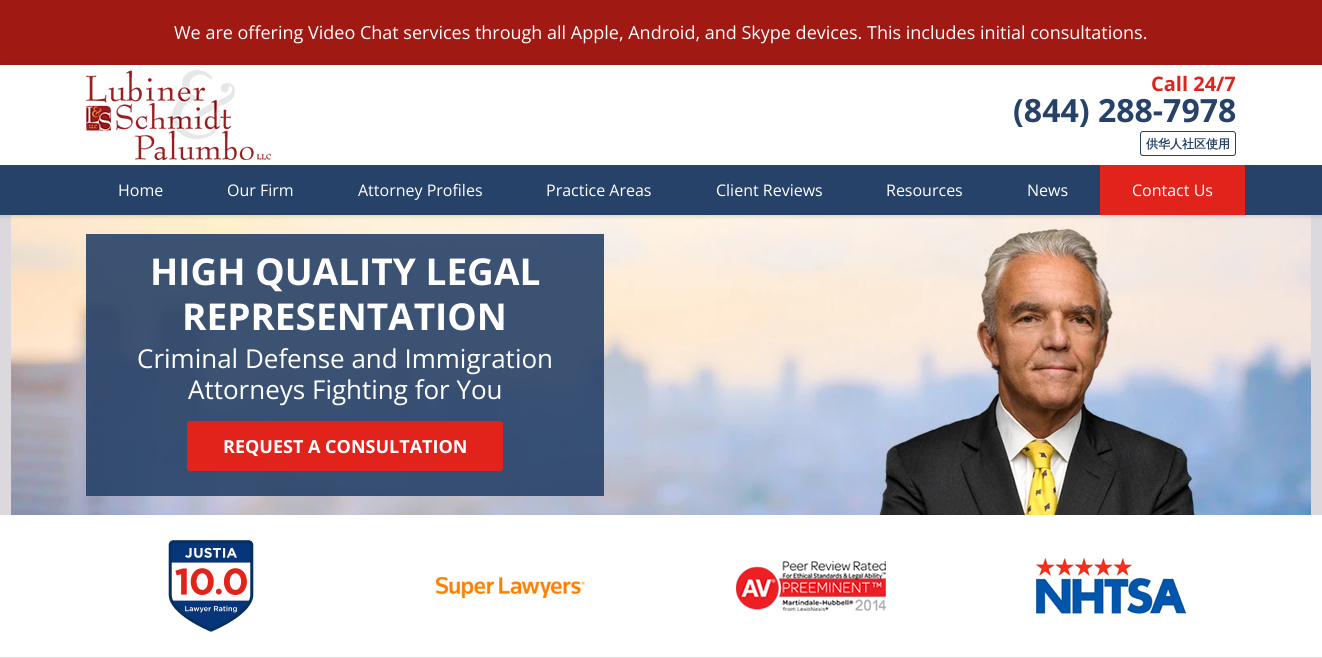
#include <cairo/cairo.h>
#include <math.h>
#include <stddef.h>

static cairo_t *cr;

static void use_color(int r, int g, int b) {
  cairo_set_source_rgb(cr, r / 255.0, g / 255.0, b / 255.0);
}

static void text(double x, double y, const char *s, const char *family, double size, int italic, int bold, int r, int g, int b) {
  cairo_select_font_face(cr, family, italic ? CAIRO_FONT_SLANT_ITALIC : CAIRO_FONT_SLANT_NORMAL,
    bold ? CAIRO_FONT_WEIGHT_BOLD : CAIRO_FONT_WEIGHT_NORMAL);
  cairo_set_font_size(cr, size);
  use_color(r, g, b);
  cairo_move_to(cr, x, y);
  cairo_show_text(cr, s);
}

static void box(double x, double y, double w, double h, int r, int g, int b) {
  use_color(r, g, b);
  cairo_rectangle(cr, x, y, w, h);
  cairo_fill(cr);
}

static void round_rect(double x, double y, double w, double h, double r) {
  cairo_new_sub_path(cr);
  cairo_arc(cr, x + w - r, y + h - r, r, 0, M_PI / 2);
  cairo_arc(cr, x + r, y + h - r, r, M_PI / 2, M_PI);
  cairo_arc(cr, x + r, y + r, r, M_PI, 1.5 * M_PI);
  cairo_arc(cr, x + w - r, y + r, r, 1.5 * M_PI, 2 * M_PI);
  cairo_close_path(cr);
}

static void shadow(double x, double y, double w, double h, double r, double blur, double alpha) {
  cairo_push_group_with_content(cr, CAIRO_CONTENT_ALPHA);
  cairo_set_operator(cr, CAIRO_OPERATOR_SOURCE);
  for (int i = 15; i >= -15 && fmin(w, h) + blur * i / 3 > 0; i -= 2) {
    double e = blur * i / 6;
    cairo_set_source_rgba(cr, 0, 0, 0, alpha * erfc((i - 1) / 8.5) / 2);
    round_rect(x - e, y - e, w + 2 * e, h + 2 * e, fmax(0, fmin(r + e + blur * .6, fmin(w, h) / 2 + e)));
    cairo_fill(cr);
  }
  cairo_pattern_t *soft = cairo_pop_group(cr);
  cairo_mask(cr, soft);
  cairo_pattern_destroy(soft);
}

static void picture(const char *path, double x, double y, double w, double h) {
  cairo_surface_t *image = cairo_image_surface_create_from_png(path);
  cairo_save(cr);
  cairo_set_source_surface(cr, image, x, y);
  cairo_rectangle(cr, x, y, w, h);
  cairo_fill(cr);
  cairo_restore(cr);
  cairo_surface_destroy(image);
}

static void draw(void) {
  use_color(255, 255, 255);
  cairo_paint(cr);
  box(0, 0, 1322, 65, 160, 25, 18);
  box(0, 215, 1322, 300, 219, 217, 222);
  picture("img_02.png", 11, 215, 1300, 300);
  cairo_save(cr);
  cairo_set_fill_rule(cr, CAIRO_FILL_RULE_EVEN_ODD);
  cairo_new_path(cr);
  cairo_move_to(cr, 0, 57);
  cairo_line_to(cr, 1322, 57);
  cairo_line_to(cr, 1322, 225);
  cairo_line_to(cr, 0, 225);
  cairo_close_path(cr);
  cairo_move_to(cr, 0, 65);
  cairo_line_to(cr, 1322, 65);
  cairo_line_to(cr, 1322, 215);
  cairo_line_to(cr, 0, 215);
  cairo_close_path(cr);
  cairo_clip(cr);
  use_color(0, 0, 0);
  shadow(0, 66, 1322, 150, 0, 2.5, 0.15);
  cairo_restore(cr);
  picture("img_01.png", 86, 70, 185, 90);
  round_rect(1140.5, 131.5, 95, 24, 2.5);
  use_color(39, 66, 104);
  cairo_set_line_width(cr, 1);
  cairo_stroke(cr);
  box(0, 165, 1322, 50, 39, 66, 104);
  box(1100, 165, 145, 50, 226, 35, 27);
  cairo_set_source_rgba(cr, 0.153, 0.259, 0.408, 0.9);
  cairo_rectangle(cr, 86, 234, 518, 262);
  cairo_fill(cr);
  use_color(226, 35, 27);
  round_rect(187, 421, 316, 50, 3);
  cairo_fill(cr);
  box(0, 657, 1322, 1, 221, 221, 221);
  picture("img_03.png", 168, 540, 86, 92);
  picture("img_04.png", 436, 577, 149, 21);
  picture("img_05.png", 736, 561, 150, 50);
  picture("img_06.png", 1036, 558, 150, 56);
  text(174, 39, "We are offering Video Chat services through all Apple, Android, and Skype devices. This includes initial consultations.", "Open Sans", 18, 0, 0, 255, 255, 255);
  text(1151, 91, "Call 24/7", "Open Sans", 20, 0, 1, 226, 35, 27);
  text(1013, 122, "(844) 288-7978", "Open Sans", 32, 0, 1, 39, 66, 104);
  text(1146, 148, "供华人社区使用", "WenQuanYi Zen Hei", 12, 0, 1, 39, 66, 104);
  text(118, 196, "Home", "Open Sans", 16, 0, 0, 255, 255, 255);
  text(227, 196, "Our Firm", "Open Sans", 16, 0, 0, 255, 255, 255);
  text(358, 196, "Attorney Profiles", "Open Sans", 16, 0, 0, 255, 255, 255);
  text(546, 196, "Practice Areas", "Open Sans", 16, 0, 0, 255, 255, 255);
  text(716, 196, "Client Reviews", "Open Sans", 16, 0, 0, 255, 255, 255);
  text(886, 196, "Resources", "Open Sans", 16, 0, 0, 255, 255, 255);
  text(1027, 196, "News", "Open Sans", 16, 0, 0, 255, 255, 255);
  text(1132, 196, "Contact Us", "Open Sans", 16, 0, 0, 255, 255, 255);
  text(150, 285, "HIGH QUALITY LEGAL", "Open Sans", 37, 0, 1, 255, 255, 255);
  text(182, 330, "REPRESENTATION", "Open Sans", 37, 0, 1, 255, 255, 255);
  text(137, 368, "Criminal Defense and Immigration", "Open Sans", 26, 0, 0, 255, 255, 255);
  text(188, 399, "Attorneys Fighting for You", "Open Sans", 26, 0, 0, 255, 255, 255);
  text(223, 453, "REQUEST A CONSULTATION", "Open Sans", 18, 0, 1, 255, 255, 255);
}

int main(void) {
  cairo_surface_t *surface = cairo_image_surface_create(CAIRO_FORMAT_RGB24, 1322, 658);
  cr = cairo_create(surface);
  cairo_font_options_t *options = cairo_font_options_create();
  cairo_font_options_set_hint_metrics(options, CAIRO_HINT_METRICS_OFF);
  cairo_font_options_set_hint_style(options, CAIRO_HINT_STYLE_NONE);
  cairo_set_font_options(cr, options);
  cairo_set_miter_limit(cr, 4);
  draw();
  cairo_surface_write_to_png(surface, "out.png");
  cairo_font_options_destroy(options);
  cairo_destroy(cr);
  cairo_surface_destroy(surface);
  return 0;
}
